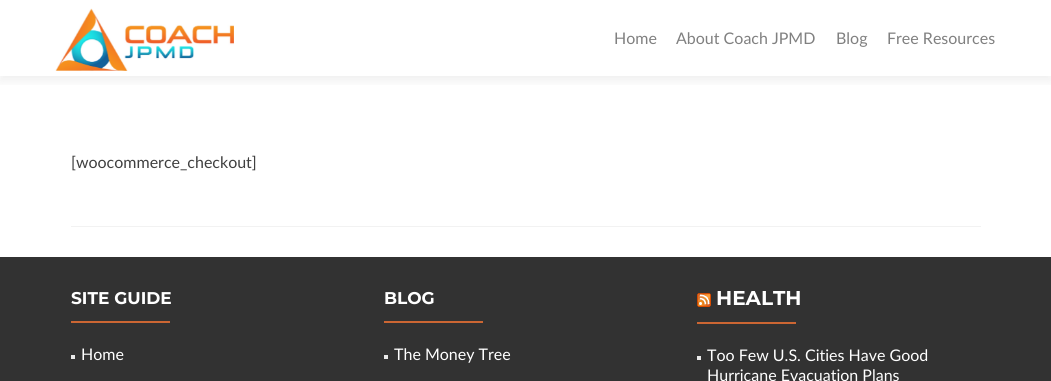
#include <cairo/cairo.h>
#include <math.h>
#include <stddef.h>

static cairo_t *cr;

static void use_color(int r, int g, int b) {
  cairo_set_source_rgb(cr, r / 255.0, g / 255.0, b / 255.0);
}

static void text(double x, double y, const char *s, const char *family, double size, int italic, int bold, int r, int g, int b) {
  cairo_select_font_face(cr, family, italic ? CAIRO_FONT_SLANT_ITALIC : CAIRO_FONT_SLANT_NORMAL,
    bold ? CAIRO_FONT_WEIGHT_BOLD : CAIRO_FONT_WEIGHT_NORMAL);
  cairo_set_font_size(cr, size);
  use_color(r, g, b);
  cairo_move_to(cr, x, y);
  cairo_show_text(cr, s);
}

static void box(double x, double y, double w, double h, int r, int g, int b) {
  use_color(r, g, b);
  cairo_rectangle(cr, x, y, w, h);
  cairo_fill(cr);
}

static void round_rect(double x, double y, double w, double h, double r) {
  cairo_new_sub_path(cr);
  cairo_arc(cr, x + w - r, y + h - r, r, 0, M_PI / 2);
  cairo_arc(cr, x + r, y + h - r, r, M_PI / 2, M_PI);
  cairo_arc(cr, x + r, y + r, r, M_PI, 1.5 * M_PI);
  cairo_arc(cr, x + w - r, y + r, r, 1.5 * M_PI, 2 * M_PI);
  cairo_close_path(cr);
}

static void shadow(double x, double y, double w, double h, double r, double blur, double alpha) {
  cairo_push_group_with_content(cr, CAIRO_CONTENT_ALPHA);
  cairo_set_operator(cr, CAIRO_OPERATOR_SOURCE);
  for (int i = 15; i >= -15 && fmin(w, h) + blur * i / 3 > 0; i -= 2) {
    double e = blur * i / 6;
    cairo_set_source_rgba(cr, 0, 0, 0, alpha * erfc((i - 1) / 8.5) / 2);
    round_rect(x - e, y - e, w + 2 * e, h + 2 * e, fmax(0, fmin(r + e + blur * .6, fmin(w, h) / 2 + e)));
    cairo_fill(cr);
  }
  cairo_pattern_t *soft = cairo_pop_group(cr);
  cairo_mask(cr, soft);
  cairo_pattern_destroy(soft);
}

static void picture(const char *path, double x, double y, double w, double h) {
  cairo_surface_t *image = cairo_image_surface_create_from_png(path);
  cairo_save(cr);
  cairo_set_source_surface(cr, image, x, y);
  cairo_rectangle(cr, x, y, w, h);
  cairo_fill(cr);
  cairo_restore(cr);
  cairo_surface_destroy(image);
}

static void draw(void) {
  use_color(255, 255, 255);
  cairo_paint(cr);
  cairo_save(cr);
  cairo_rectangle(cr, 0, 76, 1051, 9);
  cairo_clip(cr);
  use_color(50, 50, 50);
  shadow(0, 5, 1051, 76, 0, 5.5, 0.08);
  cairo_restore(cr);
  picture("img_01.png", 55, 8, 179, 63);
  box(71, 226, 910, 1, 242, 242, 242);
  box(0, 257, 1051, 124, 50, 50, 50);
  box(71, 321, 99, 2, 204, 102, 51);
  box(71, 355, 4, 4, 233, 233, 233);
  box(384, 321, 99, 2, 204, 102, 51);
  box(384, 355, 4, 4, 233, 233, 233);
  picture("img_02.png", 697, 293, 14, 14);
  box(697, 322, 99, 2, 204, 102, 51);
  box(697, 356, 4, 4, 233, 233, 233);
  text(614, 44, "Home", "Lato", 16, 0, 0, 128, 128, 128);
  text(676, 44, "About Coach JPMD", "Lato", 16, 0, 0, 128, 128, 128);
  text(836, 44, "Blog", "Lato", 16, 0, 0, 128, 128, 128);
  text(887, 44, "Free Resources", "Lato", 16, 0, 0, 128, 128, 128);
  text(71, 168, "[woocommerce_checkout]", "Lato", 16, 0, 0, 64, 64, 64);
  text(71, 304, "SITE GUIDE", "Montserrat", 17, 0, 1, 255, 255, 255);
  text(81, 360, "Home", "Lato", 16, 0, 0, 255, 255, 255);
  text(384, 304, "BLOG", "Montserrat", 17, 0, 1, 255, 255, 255);
  text(394, 360, "The Money Tree", "Lato", 16, 0, 0, 255, 255, 255);
  text(716, 305, "HEALTH", "Montserrat", 20, 0, 1, 255, 255, 255);
  text(707, 361, "Too Few U.S. Cities Have Good", "Lato", 16, 0, 0, 255, 255, 255);
  text(707, 381, "Hurricane Evacuation Plans", "Lato", 16, 0, 0, 255, 255, 255);
}

int main(void) {
  cairo_surface_t *surface = cairo_image_surface_create(CAIRO_FORMAT_RGB24, 1051, 381);
  cr = cairo_create(surface);
  cairo_font_options_t *options = cairo_font_options_create();
  cairo_font_options_set_hint_metrics(options, CAIRO_HINT_METRICS_OFF);
  cairo_font_options_set_hint_style(options, CAIRO_HINT_STYLE_NONE);
  cairo_set_font_options(cr, options);
  cairo_set_miter_limit(cr, 4);
  draw();
  cairo_surface_write_to_png(surface, "out.png");
  cairo_font_options_destroy(options);
  cairo_destroy(cr);
  cairo_surface_destroy(surface);
  return 0;
}
